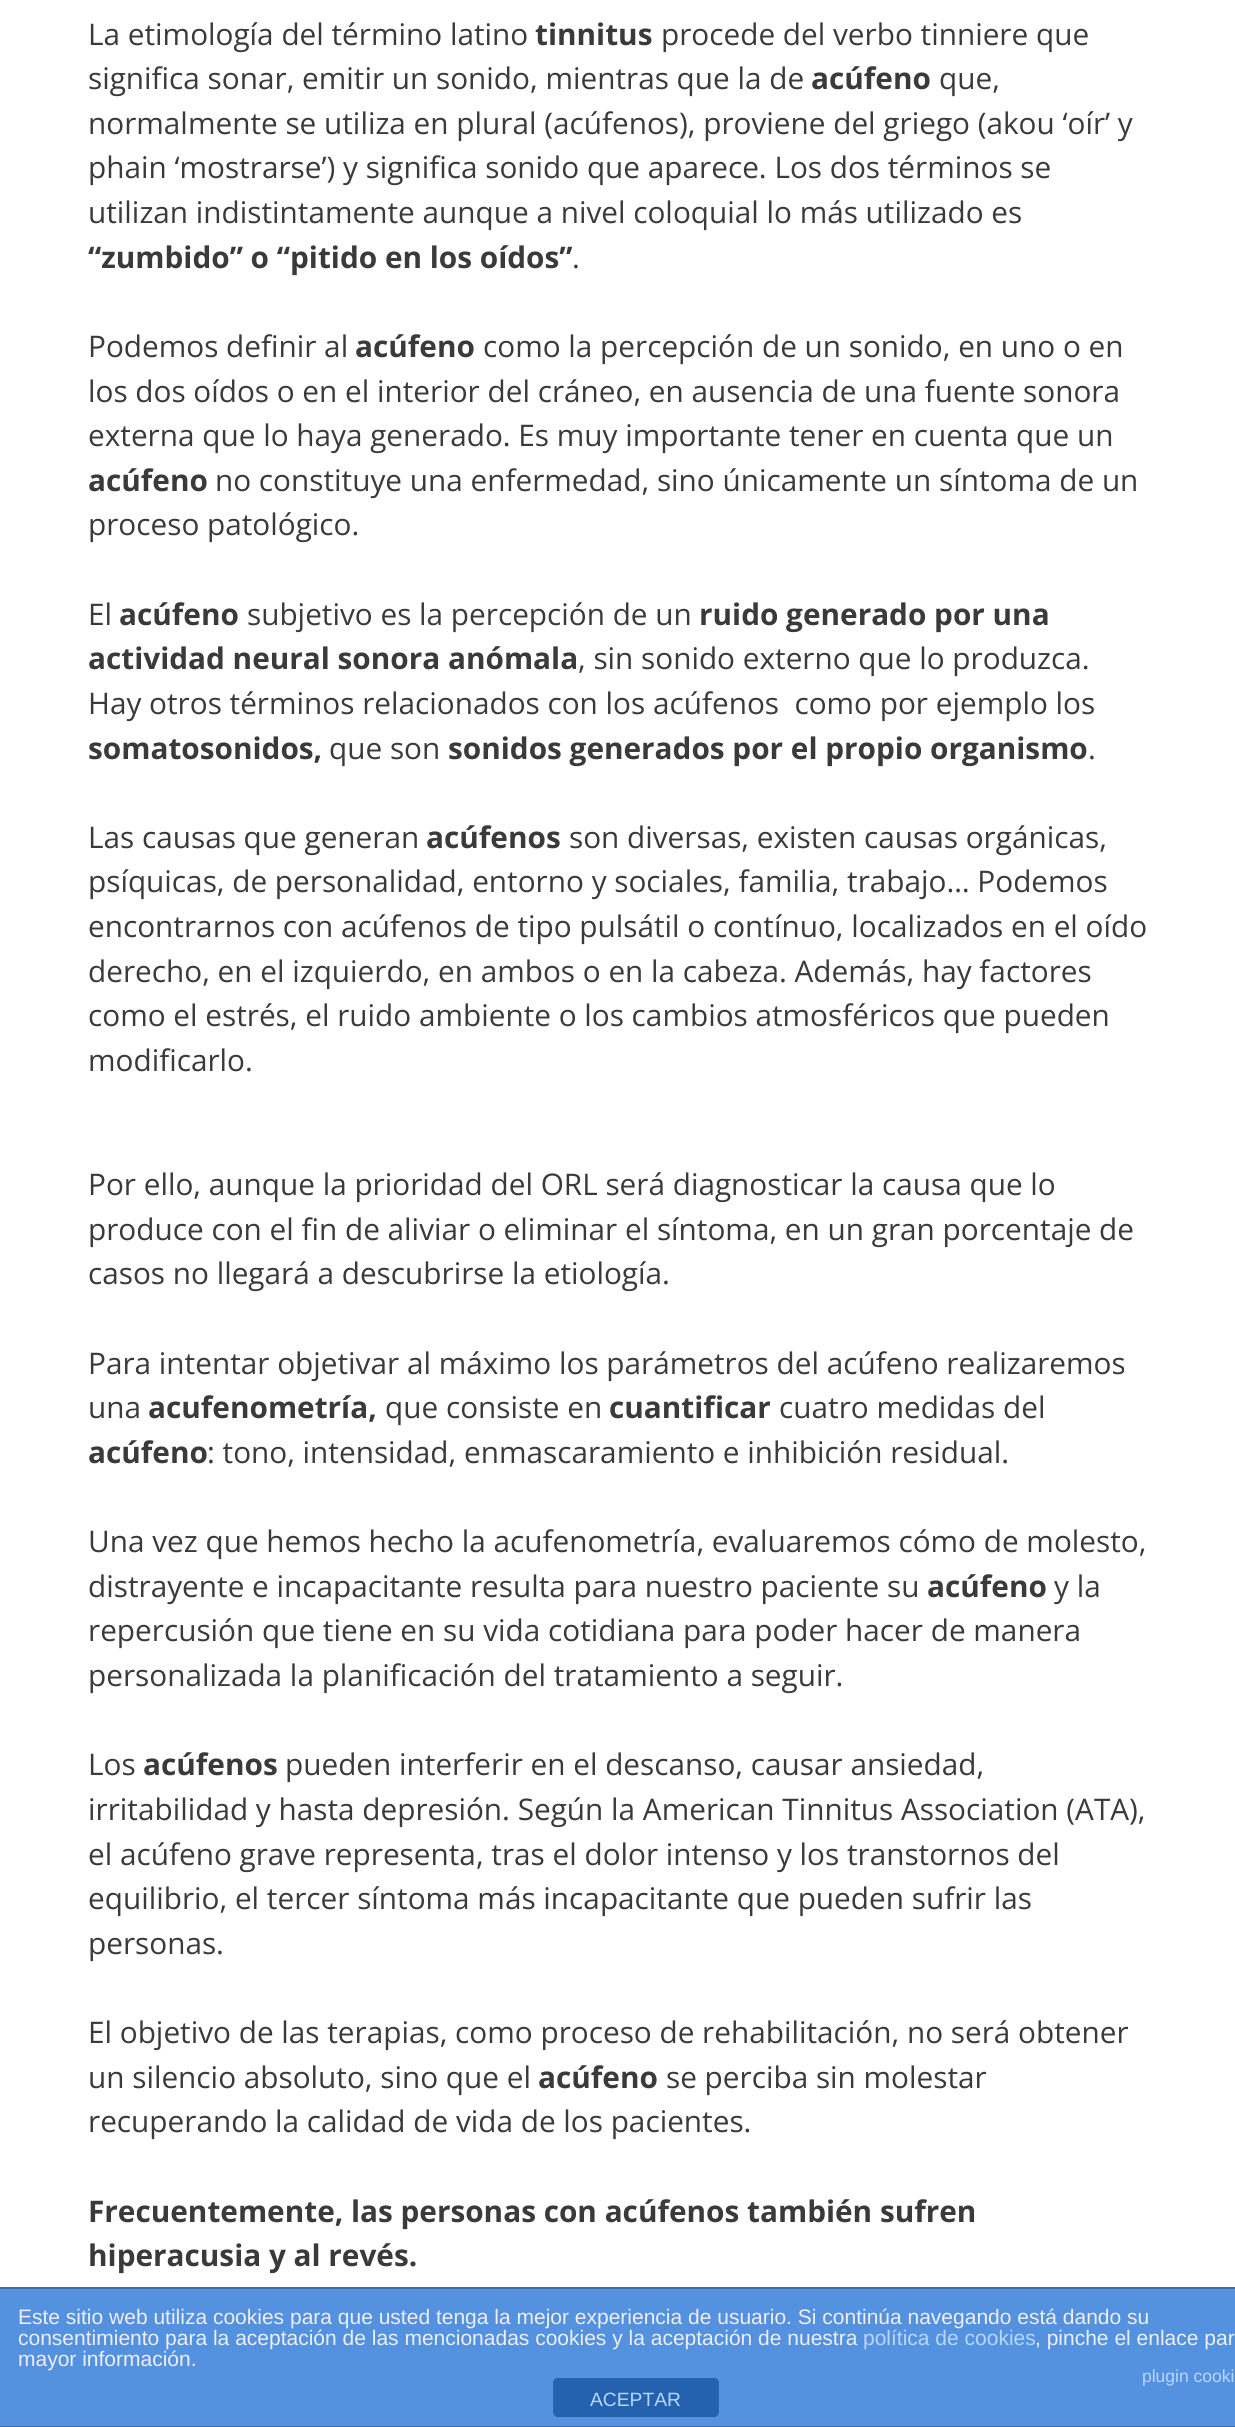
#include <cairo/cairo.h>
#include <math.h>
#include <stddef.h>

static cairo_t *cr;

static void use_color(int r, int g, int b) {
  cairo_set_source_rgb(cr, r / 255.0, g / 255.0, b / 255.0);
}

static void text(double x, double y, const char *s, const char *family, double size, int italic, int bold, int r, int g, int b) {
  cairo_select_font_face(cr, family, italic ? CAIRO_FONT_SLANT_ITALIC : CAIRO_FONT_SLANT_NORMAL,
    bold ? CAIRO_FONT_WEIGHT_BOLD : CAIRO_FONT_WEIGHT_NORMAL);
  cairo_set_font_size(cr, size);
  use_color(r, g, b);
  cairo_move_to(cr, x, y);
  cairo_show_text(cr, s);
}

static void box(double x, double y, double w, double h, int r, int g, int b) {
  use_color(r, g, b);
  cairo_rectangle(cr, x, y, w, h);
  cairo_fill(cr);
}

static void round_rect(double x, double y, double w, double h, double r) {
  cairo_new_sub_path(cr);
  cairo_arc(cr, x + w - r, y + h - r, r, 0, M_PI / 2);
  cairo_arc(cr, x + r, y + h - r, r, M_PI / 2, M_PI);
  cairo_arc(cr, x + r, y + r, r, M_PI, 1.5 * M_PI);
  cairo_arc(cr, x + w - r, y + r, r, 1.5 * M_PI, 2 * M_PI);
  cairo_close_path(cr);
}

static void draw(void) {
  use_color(255, 255, 255);
  cairo_paint(cr);
  box(0, 2289, 1235, 137, 84, 146, 224);
  box(0, 2287, 1235, 2, 63, 109, 167);
  box(0, 2426, 1235, 1, 63, 109, 167);
  use_color(36, 98, 176);
  round_rect(553, 2378, 166, 39, 5);
  cairo_fill(cr);
  text(88, 45, "La etimología del término latino", "Open Sans", 29.75, 0, 0, 58, 58, 58);
  text(535, 45, "tinnitus", "Open Sans", 29.75, 0, 1, 58, 58, 58);
  text(661, 45, "procede del verbo tinniere que", "Open Sans", 29.75, 0, 0, 58, 58, 58);
  text(88, 89, "significa sonar, emitir un sonido, mientras que la de", "Open Sans", 29.75, 0, 0, 58, 58, 58);
  text(811, 89, "acúfeno", "Open Sans", 29.75, 0, 1, 58, 58, 58);
  text(939, 89, "que,", "Open Sans", 29.75, 0, 0, 58, 58, 58);
  text(88, 134, "normalmente se utiliza en plural (acúfenos), proviene del griego (akou ‘oír’ y", "Open Sans", 29.75, 0, 0, 58, 58, 58);
  text(88, 178, "phain ‘mostrarse’) y significa sonido que aparece. Los dos términos se", "Open Sans", 29.75, 0, 0, 58, 58, 58);
  text(88, 223, "utilizan indistintamente aunque a nivel coloquial lo más utilizado es", "Open Sans", 29.75, 0, 0, 58, 58, 58);
  text(88, 268, "“zumbido” o “pitido en los oídos”", "Open Sans", 29.75, 0, 1, 58, 58, 58);
  text(572, 268, ".", "Open Sans", 29.75, 0, 0, 58, 58, 58);
  text(88, 357, "Podemos definir al", "Open Sans", 29.75, 0, 0, 58, 58, 58);
  text(355, 357, "acúfeno", "Open Sans", 29.75, 0, 1, 58, 58, 58);
  text(483, 357, "como la percepción de un sonido, en uno o en", "Open Sans", 29.75, 0, 0, 58, 58, 58);
  text(88, 402, "los dos oídos o en el interior del cráneo, en ausencia de una fuente sonora", "Open Sans", 29.75, 0, 0, 58, 58, 58);
  text(88, 446, "externa que lo haya generado. Es muy importante tener en cuenta que un", "Open Sans", 29.75, 0, 0, 58, 58, 58);
  text(88, 491, "acúfeno", "Open Sans", 29.75, 0, 1, 58, 58, 58);
  text(215, 491, "no constituye una enfermedad, sino únicamente un síntoma de un", "Open Sans", 29.75, 0, 0, 58, 58, 58);
  text(88, 535, "proceso patológico.", "Open Sans", 29.75, 0, 0, 58, 58, 58);
  text(88, 625, "El", "Open Sans", 29.75, 0, 0, 58, 58, 58);
  text(119, 625, "acúfeno", "Open Sans", 29.75, 0, 1, 58, 58, 58);
  text(247, 625, "subjetivo es la percepción de un", "Open Sans", 29.75, 0, 0, 58, 58, 58);
  text(699, 625, "ruido generado por una", "Open Sans", 29.75, 0, 1, 58, 58, 58);
  text(88, 669, "actividad neural sonora anómala", "Open Sans", 29.75, 0, 1, 58, 58, 58);
  text(578, 669, ", sin sonido externo que lo produzca.", "Open Sans", 29.75, 0, 0, 58, 58, 58);
  text(88, 714, "Hay otros términos relacionados con los acúfenos  como por ejemplo los", "Open Sans", 29.75, 0, 0, 58, 58, 58);
  text(88, 759, "somatosonidos,", "Open Sans", 29.75, 0, 1, 58, 58, 58);
  text(329, 759, "que son", "Open Sans", 29.75, 0, 0, 58, 58, 58);
  text(448, 759, "sonidos generados por el propio organismo", "Open Sans", 29.75, 0, 1, 58, 58, 58);
  text(1088, 759, ".", "Open Sans", 29.75, 0, 0, 58, 58, 58);
  text(88, 848, "Las causas que generan", "Open Sans", 29.75, 0, 0, 58, 58, 58);
  text(426, 848, "acúfenos", "Open Sans", 29.75, 0, 1, 58, 58, 58);
  text(569, 848, "son diversas, existen causas orgánicas,", "Open Sans", 29.75, 0, 0, 58, 58, 58);
  text(88, 892, "psíquicas, de personalidad, entorno y sociales, familia, trabajo… Podemos", "Open Sans", 29.75, 0, 0, 58, 58, 58);
  text(88, 937, "encontrarnos con acúfenos de tipo pulsátil o contínuo, localizados en el oído", "Open Sans", 29.75, 0, 0, 58, 58, 58);
  text(88, 982, "derecho, en el izquierdo, en ambos o en la cabeza. Además, hay factores", "Open Sans", 29.75, 0, 0, 58, 58, 58);
  text(88, 1026, "como el estrés, el ruido ambiente o los cambios atmosféricos que pueden", "Open Sans", 29.75, 0, 0, 58, 58, 58);
  text(88, 1071, "modificarlo.", "Open Sans", 29.75, 0, 0, 58, 58, 58);
  text(88, 1195, "Por ello, aunque la prioridad del ORL será diagnosticar la causa que lo", "Open Sans", 29.75, 0, 0, 58, 58, 58);
  text(88, 1240, "produce con el fin de aliviar o eliminar el síntoma, en un gran porcentaje de", "Open Sans", 29.75, 0, 0, 58, 58, 58);
  text(88, 1284, "casos no llegará a descubrirse la etiología.", "Open Sans", 29.75, 0, 0, 58, 58, 58);
  text(88, 1374, "Para intentar objetivar al máximo los parámetros del acúfeno realizaremos", "Open Sans", 29.75, 0, 0, 58, 58, 58);
  text(88, 1418, "una", "Open Sans", 29.75, 0, 0, 58, 58, 58);
  text(148, 1418, "acufenometría,", "Open Sans", 29.75, 0, 1, 58, 58, 58);
  text(385, 1418, "que consiste en", "Open Sans", 29.75, 0, 0, 58, 58, 58);
  text(609, 1418, "cuantificar", "Open Sans", 29.75, 0, 1, 58, 58, 58);
  text(779, 1418, "cuatro medidas del", "Open Sans", 29.75, 0, 0, 58, 58, 58);
  text(88, 1463, "acúfeno", "Open Sans", 29.75, 0, 1, 58, 58, 58);
  text(207, 1463, ": tono, intensidad, enmascaramiento e inhibición residual.", "Open Sans", 29.75, 0, 0, 58, 58, 58);
  text(88, 1552, "Una vez que hemos hecho la acufenometría, evaluaremos cómo de molesto,", "Open Sans", 29.75, 0, 0, 58, 58, 58);
  text(88, 1597, "distrayente e incapacitante resulta para nuestro paciente su", "Open Sans", 29.75, 0, 0, 58, 58, 58);
  text(927, 1597, "acúfeno", "Open Sans", 29.75, 0, 1, 58, 58, 58);
  text(1054, 1597, "y la", "Open Sans", 29.75, 0, 0, 58, 58, 58);
  text(88, 1641, "repercusión que tiene en su vida cotidiana para poder hacer de manera", "Open Sans", 29.75, 0, 0, 58, 58, 58);
  text(88, 1686, "personalizada la planificación del tratamiento a seguir.", "Open Sans", 29.75, 0, 0, 58, 58, 58);
  text(88, 1775, "Los", "Open Sans", 29.75, 0, 0, 58, 58, 58);
  text(143, 1775, "acúfenos", "Open Sans", 29.75, 0, 1, 58, 58, 58);
  text(285, 1775, "pueden interferir en el descanso, causar ansiedad,", "Open Sans", 29.75, 0, 0, 58, 58, 58);
  text(88, 1820, "irritabilidad y hasta depresión. Según la American Tinnitus Association (ATA),", "Open Sans", 29.75, 0, 0, 58, 58, 58);
  text(88, 1865, "el acúfeno grave representa, tras el dolor intenso y los transtornos del", "Open Sans", 29.75, 0, 0, 58, 58, 58);
  text(88, 1909, "equilibrio, el tercer síntoma más incapacitante que pueden sufrir las", "Open Sans", 29.75, 0, 0, 58, 58, 58);
  text(88, 1954, "personas.", "Open Sans", 29.75, 0, 0, 58, 58, 58);
  text(88, 2043, "El objetivo de las terapias, como proceso de rehabilitación, no será obtener", "Open Sans", 29.75, 0, 0, 58, 58, 58);
  text(88, 2088, "un silencio absoluto, sino que el", "Open Sans", 29.75, 0, 0, 58, 58, 58);
  text(538, 2088, "acúfeno", "Open Sans", 29.75, 0, 1, 58, 58, 58);
  text(666, 2088, "se perciba sin molestar", "Open Sans", 29.75, 0, 0, 58, 58, 58);
  text(88, 2132, "recuperando la calidad de vida de los pacientes.", "Open Sans", 29.75, 0, 0, 58, 58, 58);
  text(88, 2222, "Frecuentemente, las personas con acúfenos también sufren", "Open Sans", 29.75, 0, 1, 58, 58, 58);
  text(88, 2266, "hiperacusia y al revés.", "Open Sans", 29.75, 0, 1, 58, 58, 58);
  text(18, 2324, "Este sitio web utiliza cookies para que usted tenga la mejor experiencia de usuario. Si continúa navegando está dando su", "Liberation Sans", 21, 0, 0, 238, 238, 238);
  text(18, 2345, "consentimiento para la aceptación de las mencionadas cookies y la aceptación de nuestra", "Liberation Sans", 21, 0, 0, 238, 238, 238);
  text(863, 2345, "política de cookies", "Liberation Sans", 21, 0, 0, 183, 215, 255);
  text(1035, 2345, ", pinche el enlace par", "Liberation Sans", 21, 0, 0, 238, 238, 238);
  text(18, 2366, "mayor información.", "Liberation Sans", 21, 0, 0, 238, 238, 238);
  text(1142, 2382, "plugin cooki", "Liberation Sans", 17.5, 0, 0, 183, 215, 255);
  text(590, 2406, "ACEPTAR", "Liberation Sans", 19.25, 0, 0, 183, 215, 255);
}

int main(void) {
  cairo_surface_t *surface = cairo_image_surface_create(CAIRO_FORMAT_RGB24, 1235, 2427);
  cr = cairo_create(surface);
  cairo_font_options_t *options = cairo_font_options_create();
  cairo_font_options_set_hint_metrics(options, CAIRO_HINT_METRICS_OFF);
  cairo_font_options_set_hint_style(options, CAIRO_HINT_STYLE_NONE);
  cairo_set_font_options(cr, options);
  cairo_set_miter_limit(cr, 4);
  draw();
  cairo_surface_write_to_png(surface, "out.png");
  cairo_font_options_destroy(options);
  cairo_destroy(cr);
  cairo_surface_destroy(surface);
  return 0;
}
